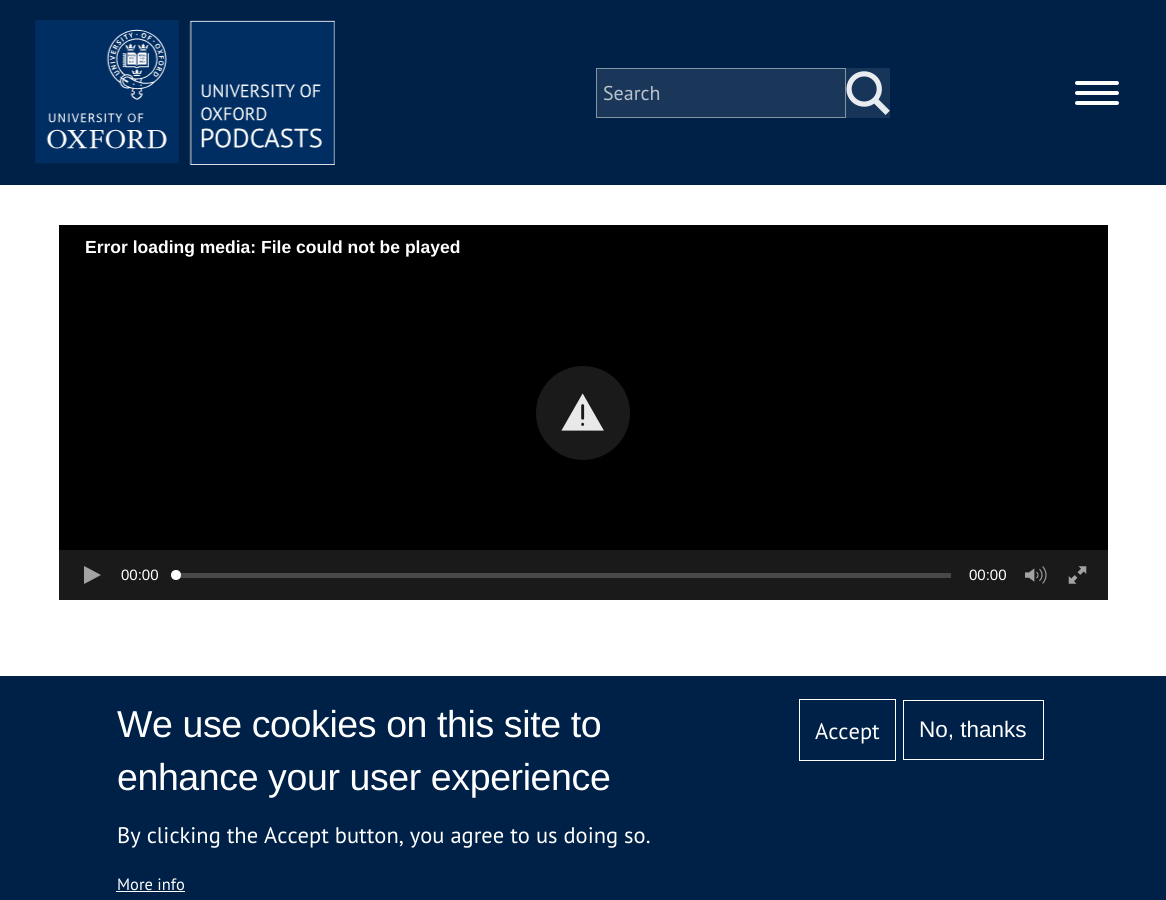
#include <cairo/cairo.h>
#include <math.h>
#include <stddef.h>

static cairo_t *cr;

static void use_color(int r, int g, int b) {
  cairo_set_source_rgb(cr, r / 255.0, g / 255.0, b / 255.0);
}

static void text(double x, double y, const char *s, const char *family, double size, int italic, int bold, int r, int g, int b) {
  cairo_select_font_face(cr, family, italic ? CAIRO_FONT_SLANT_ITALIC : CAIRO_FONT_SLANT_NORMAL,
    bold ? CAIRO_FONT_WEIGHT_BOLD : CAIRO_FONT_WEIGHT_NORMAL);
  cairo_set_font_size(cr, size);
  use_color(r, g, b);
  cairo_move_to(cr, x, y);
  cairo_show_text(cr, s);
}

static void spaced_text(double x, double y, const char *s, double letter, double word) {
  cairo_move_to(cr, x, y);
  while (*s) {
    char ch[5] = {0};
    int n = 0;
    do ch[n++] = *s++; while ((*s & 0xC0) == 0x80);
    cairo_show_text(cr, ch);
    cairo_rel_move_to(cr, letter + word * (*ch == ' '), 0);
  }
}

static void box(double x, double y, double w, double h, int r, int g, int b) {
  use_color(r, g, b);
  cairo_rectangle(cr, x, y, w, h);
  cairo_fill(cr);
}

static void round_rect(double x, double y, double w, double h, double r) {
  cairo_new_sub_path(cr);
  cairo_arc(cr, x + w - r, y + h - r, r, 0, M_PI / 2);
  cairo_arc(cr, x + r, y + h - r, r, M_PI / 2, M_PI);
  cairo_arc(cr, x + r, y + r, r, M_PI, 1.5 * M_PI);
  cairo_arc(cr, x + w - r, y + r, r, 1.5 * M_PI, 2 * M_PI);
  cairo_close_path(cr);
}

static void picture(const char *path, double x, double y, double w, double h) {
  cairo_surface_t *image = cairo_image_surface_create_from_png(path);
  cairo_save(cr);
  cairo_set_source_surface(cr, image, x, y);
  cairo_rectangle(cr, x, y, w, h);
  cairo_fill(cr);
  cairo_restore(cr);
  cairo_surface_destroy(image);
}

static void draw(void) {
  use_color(255, 255, 255);
  cairo_paint(cr);
  box(0, 0, 1166, 185, 0, 33, 71);
  picture("img_01.png", 35, 20, 300, 145);
  use_color(26, 55, 89);
  cairo_rectangle(cr, 596.5, 68.5, 249, 49);
  cairo_fill_preserve(cr);
  use_color(129, 150, 162);
  cairo_set_line_width(cr, 1);
  cairo_stroke(cr);
  box(846, 68, 44, 50, 23, 53, 88);
  picture("img_02.png", 846, 71, 44, 44);
  use_color(255, 255, 255);
  round_rect(1075, 91, 44, 4, 2);
  cairo_fill(cr);
  round_rect(1075, 81, 44, 4, 2);
  cairo_fill(cr);
  round_rect(1075, 101, 44, 4, 2);
  cairo_fill(cr);
  box(59, 225, 1049, 325, 0, 0, 0);
  use_color(26, 26, 26);
  cairo_arc(cr, 583, 413, 47, 0, 2 * M_PI);
  cairo_fill(cr);
  picture("img_03.png", 561, 393, 43, 38);
  box(59, 550, 1049, 50, 26, 26, 26);
  use_color(163, 163, 163);
  cairo_new_path(cr);
  cairo_move_to(cr, 101, 575);
  cairo_line_to(cr, 84, 584);
  cairo_line_to(cr, 84, 566);
  cairo_close_path(cr);
  cairo_fill(cr);
  box(176, 573, 775, 5, 72, 72, 72);
  use_color(255, 255, 255);
  cairo_arc(cr, 176, 575, 5, 0, 2 * M_PI);
  cairo_fill(cr);
  picture("img_04.png", 1025, 566, 22, 18);
  picture("img_05.png", 1068, 566, 19, 18);
  box(0, 676, 1166, 224, 0, 33, 71);
  box(116, 891, 69, 1, 255, 255, 255);
  cairo_rectangle(cr, 799.5, 699.5, 96, 61);
  cairo_stroke(cr);
  cairo_rectangle(cr, 903.5, 700.5, 140, 59);
  cairo_stroke(cr);
  text(603, 100, "Search", "PT Sans", 20, 0, 0, 186, 195, 205);
  text(85, 253, "Error loading media: File could not be played", "Liberation Sans", 17.5, 0, 1, 255, 255, 255);
  text(121, 580, "00:00", "Liberation Sans", 15, 0, 0, 255, 255, 255);
  text(969, 580, "00:00", "Liberation Sans", 15, 0, 0, 255, 255, 255);
  cairo_set_font_size(cr, 37.5);
  spaced_text(117, 737, "We use cookies on this site to", -0.4, 0);
  spaced_text(117, 790, "enhance your user experience", -0.4, 0);
  text(117, 843, "By clicking the Accept button, you agree to us doing so.", "PT Sans", 22.5, 0, 0, 255, 255, 255);
  text(117, 890, "More info", "PT Sans", 16.5, 0, 0, 255, 255, 255);
  text(815, 739, "Accept", "PT Sans", 22.5, 0, 0, 255, 255, 255);
  text(919, 737, "No, thanks", "Liberation Sans", 22.5, 0, 0, 255, 255, 255);
}

int main(void) {
  cairo_surface_t *surface = cairo_image_surface_create(CAIRO_FORMAT_RGB24, 1166, 900);
  cr = cairo_create(surface);
  cairo_font_options_t *options = cairo_font_options_create();
  cairo_font_options_set_hint_metrics(options, CAIRO_HINT_METRICS_OFF);
  cairo_font_options_set_hint_style(options, CAIRO_HINT_STYLE_NONE);
  cairo_set_font_options(cr, options);
  cairo_set_miter_limit(cr, 4);
  draw();
  cairo_surface_write_to_png(surface, "out.png");
  cairo_font_options_destroy(options);
  cairo_destroy(cr);
  cairo_surface_destroy(surface);
  return 0;
}
